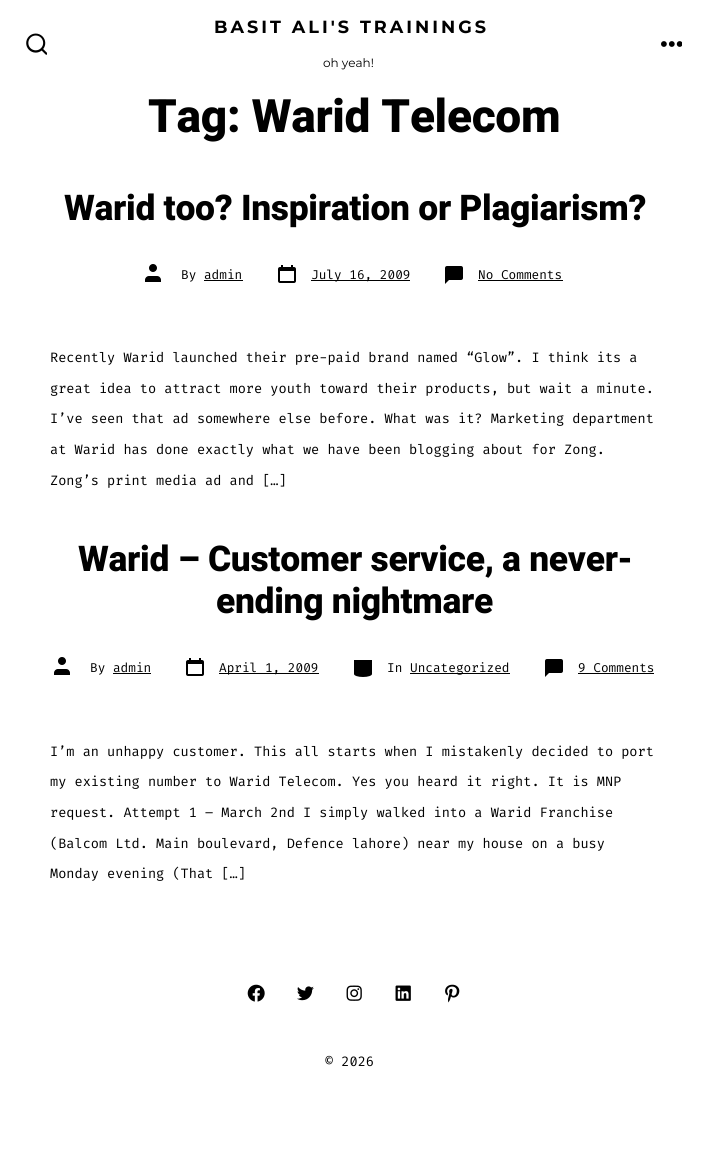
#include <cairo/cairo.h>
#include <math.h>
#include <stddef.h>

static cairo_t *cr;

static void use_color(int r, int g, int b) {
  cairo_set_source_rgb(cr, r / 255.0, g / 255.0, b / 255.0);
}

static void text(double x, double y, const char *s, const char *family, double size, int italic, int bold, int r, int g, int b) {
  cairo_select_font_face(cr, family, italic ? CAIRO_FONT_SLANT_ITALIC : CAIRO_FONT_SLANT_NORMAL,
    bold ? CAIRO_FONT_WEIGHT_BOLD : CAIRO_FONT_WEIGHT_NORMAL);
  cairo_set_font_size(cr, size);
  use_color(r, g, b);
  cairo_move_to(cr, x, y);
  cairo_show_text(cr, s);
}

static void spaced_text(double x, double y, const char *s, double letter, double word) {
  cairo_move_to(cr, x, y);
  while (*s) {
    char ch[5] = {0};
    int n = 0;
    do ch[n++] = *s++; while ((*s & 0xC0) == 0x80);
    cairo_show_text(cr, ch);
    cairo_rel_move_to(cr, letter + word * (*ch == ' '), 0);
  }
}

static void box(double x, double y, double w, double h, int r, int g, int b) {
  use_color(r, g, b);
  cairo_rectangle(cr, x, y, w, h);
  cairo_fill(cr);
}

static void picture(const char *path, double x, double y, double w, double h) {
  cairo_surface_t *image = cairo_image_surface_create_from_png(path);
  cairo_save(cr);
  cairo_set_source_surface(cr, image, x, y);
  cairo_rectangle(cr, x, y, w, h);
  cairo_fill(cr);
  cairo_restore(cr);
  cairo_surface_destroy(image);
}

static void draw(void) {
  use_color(255, 255, 255);
  cairo_paint(cr);
  picture("img_01.png", 26, 33, 21, 22);
  picture("img_02.png", 661, 41, 21, 6);
  picture("img_03.png", 145, 264, 16, 18);
  box(204, 280, 39, 1, 0, 0, 0);
  picture("img_04.png", 278, 265, 18, 18);
  box(311, 280, 99, 1, 0, 0, 0);
  picture("img_05.png", 445, 266, 18, 18);
  box(478, 280, 85, 1, 0, 0, 0);
  picture("img_03.png", 54, 657, 16, 18);
  box(113, 673, 38, 1, 0, 0, 0);
  picture("img_04.png", 186, 658, 18, 18);
  box(219, 673, 100, 1, 0, 0, 0);
  picture("img_06.png", 354, 660, 18, 17);
  box(410, 673, 100, 1, 0, 0, 0);
  picture("img_05.png", 545, 659, 18, 18);
  box(578, 673, 76, 1, 0, 0, 0);
  picture("img_07.png", 247, 984, 18, 18);
  picture("img_08.png", 297, 986, 17, 15);
  picture("img_09.png", 346, 985, 16, 16);
  picture("img_10.png", 395, 985, 16, 16);
  picture("img_11.png", 445, 984, 15, 19);
  cairo_select_font_face(cr, "Montserrat", CAIRO_FONT_SLANT_NORMAL, CAIRO_FONT_WEIGHT_BOLD);
  cairo_set_font_size(cr, 17.6);
  spaced_text(214, 33, "BASIT ALI'S TRAININGS", 3, 0);
  text(323, 67, "oh yeah!", "Montserrat", 12, 0, 0, 0, 0, 0);
  cairo_select_font_face(cr, "Heebo ExtraBold", CAIRO_FONT_SLANT_NORMAL, CAIRO_FONT_WEIGHT_NORMAL);
  cairo_set_font_size(cr, 46);
  spaced_text(148, 132, "Tag: Warid Telecom", -0.3, 0);
  cairo_set_font_size(cr, 35.4);
  spaced_text(64, 220, "Warid too? Inspiration or Plagiarism?", -0.3, 0);
  text(181, 279, "By admin", "Fira Code", 12.75, 0, 0, 0, 0, 0);
  text(311, 279, "July 16, 2009", "Fira Code", 12.75, 0, 0, 0, 0, 0);
  text(478, 279, "No Comments", "Fira Code", 12.75, 0, 0, 0, 0, 0);
  text(50, 362, "Recently Warid launched their pre-paid brand named “Glow”. I think its a", "Fira Code", 13.6, 0, 0, 0, 0, 0);
  text(50, 393, "great idea to attract more youth toward their products, but wait a minute.", "Fira Code", 13.6, 0, 0, 0, 0, 0);
  text(50, 423, "I’ve seen that ad somewhere else before. What was it? Marketing department", "Fira Code", 13.6, 0, 0, 0, 0, 0);
  text(50, 454, "at Warid has done exactly what we have been blogging about for Zong.", "Fira Code", 13.6, 0, 0, 0, 0, 0);
  text(50, 485, "Zong’s print media ad and […]", "Fira Code", 13.6, 0, 0, 0, 0, 0);
  cairo_select_font_face(cr, "Heebo ExtraBold", CAIRO_FONT_SLANT_NORMAL, CAIRO_FONT_WEIGHT_NORMAL);
  cairo_set_font_size(cr, 35.4);
  spaced_text(78, 571, "Warid – Customer service, a never-", -0.3, 0);
  spaced_text(216, 613, "ending nightmare", -0.3, 0);
  text(90, 672, "By admin", "Fira Code", 12.75, 0, 0, 0, 0, 0);
  text(219, 672, "April 1, 2009", "Fira Code", 12.75, 0, 0, 0, 0, 0);
  text(387, 672, "In", "Fira Code", 12.75, 0, 0, 0, 0, 0);
  text(410, 672, "Uncategorized", "Fira Code", 12.75, 0, 0, 0, 0, 0);
  text(578, 672, "9 Comments", "Fira Code", 12.75, 0, 0, 0, 0, 0);
  text(50, 756, "I’m an unhappy customer. This all starts when I mistakenly decided to port", "Fira Code", 13.6, 0, 0, 0, 0, 0);
  text(50, 786, "my existing number to Warid Telecom. Yes you heard it right. It is MNP", "Fira Code", 13.6, 0, 0, 0, 0, 0);
  text(50, 817, "request. Attempt 1 – March 2nd I simply walked into a Warid Franchise", "Fira Code", 13.6, 0, 0, 0, 0, 0);
  text(50, 848, "(Balcom Ltd. Main boulevard, Defence lahore) near my house on a busy", "Fira Code", 13.6, 0, 0, 0, 0, 0);
  text(50, 878, "Monday evening (That […]", "Fira Code", 13.6, 0, 0, 0, 0, 0);
  text(325, 1066, "© 2026", "Fira Code", 13.6, 0, 0, 0, 0, 0);
}

int main(void) {
  cairo_surface_t *surface = cairo_image_surface_create(CAIRO_FORMAT_RGB24, 708, 1168);
  cr = cairo_create(surface);
  cairo_font_options_t *options = cairo_font_options_create();
  cairo_font_options_set_hint_metrics(options, CAIRO_HINT_METRICS_OFF);
  cairo_font_options_set_hint_style(options, CAIRO_HINT_STYLE_NONE);
  cairo_set_font_options(cr, options);
  cairo_set_miter_limit(cr, 4);
  draw();
  cairo_surface_write_to_png(surface, "out.png");
  cairo_font_options_destroy(options);
  cairo_destroy(cr);
  cairo_surface_destroy(surface);
  return 0;
}
